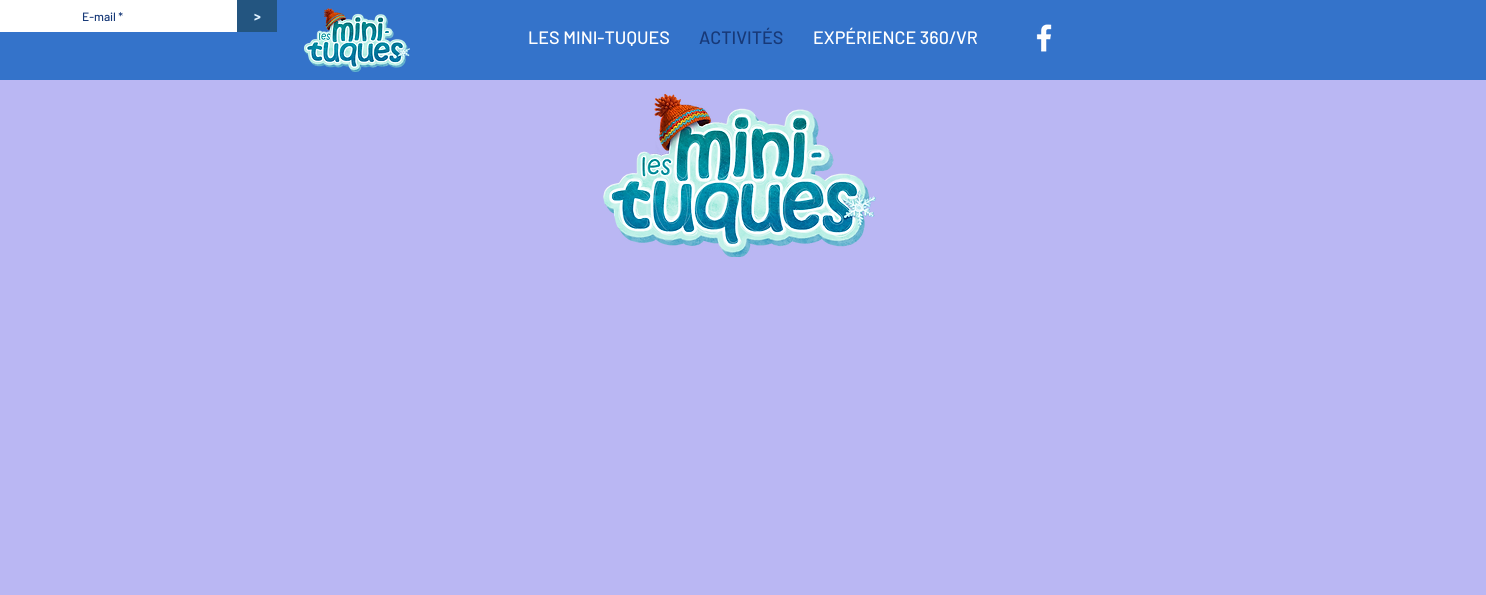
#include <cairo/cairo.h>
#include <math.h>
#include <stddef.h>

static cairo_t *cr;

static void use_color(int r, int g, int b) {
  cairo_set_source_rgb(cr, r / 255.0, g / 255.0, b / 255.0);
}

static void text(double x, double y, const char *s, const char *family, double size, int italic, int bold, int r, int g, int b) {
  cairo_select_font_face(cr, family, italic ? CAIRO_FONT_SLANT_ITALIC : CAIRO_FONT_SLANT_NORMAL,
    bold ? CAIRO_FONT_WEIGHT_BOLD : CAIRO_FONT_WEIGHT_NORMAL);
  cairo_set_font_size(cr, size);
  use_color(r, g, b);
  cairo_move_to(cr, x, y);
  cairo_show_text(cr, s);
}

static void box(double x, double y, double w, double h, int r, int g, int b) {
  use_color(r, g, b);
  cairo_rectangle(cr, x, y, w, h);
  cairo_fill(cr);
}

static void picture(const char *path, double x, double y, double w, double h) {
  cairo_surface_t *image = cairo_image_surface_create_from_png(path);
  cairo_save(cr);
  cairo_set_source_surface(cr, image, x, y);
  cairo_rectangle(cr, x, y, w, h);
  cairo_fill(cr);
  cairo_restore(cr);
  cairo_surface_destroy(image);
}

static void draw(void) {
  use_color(186, 183, 243);
  cairo_paint(cr);
  box(0, 0, 1486, 80, 52, 115, 202);
  box(0, 0, 237, 32, 255, 255, 255);
  box(237, 0, 40, 32, 35, 85, 128);
  picture("img_01.png", 304, 8, 106, 64);
  picture("img_02.png", 1036, 24, 16, 28);
  picture("img_03.png", 603, 94, 273, 163);
  text(82, 21, "E-mail *", "Barlow Medium", 12, 0, 0, 23, 57, 120);
  text(254, 21, ">", "Barlow", 14, 0, 1, 224, 242, 255);
  text(528, 44, "LES MINI-TUQUES", "Barlow Medium", 18, 0, 0, 255, 255, 255);
  text(699, 44, "ACTIVITÉS", "Barlow Medium", 18, 0, 0, 23, 57, 120);
  text(813, 44, "EXPÉRIENCE 360/VR", "Barlow Medium", 18, 0, 0, 255, 255, 255);
}

int main(void) {
  cairo_surface_t *surface = cairo_image_surface_create(CAIRO_FORMAT_RGB24, 1486, 595);
  cr = cairo_create(surface);
  cairo_font_options_t *options = cairo_font_options_create();
  cairo_font_options_set_hint_metrics(options, CAIRO_HINT_METRICS_OFF);
  cairo_font_options_set_hint_style(options, CAIRO_HINT_STYLE_NONE);
  cairo_set_font_options(cr, options);
  cairo_set_miter_limit(cr, 4);
  draw();
  cairo_surface_write_to_png(surface, "out.png");
  cairo_font_options_destroy(options);
  cairo_destroy(cr);
  cairo_surface_destroy(surface);
  return 0;
}
